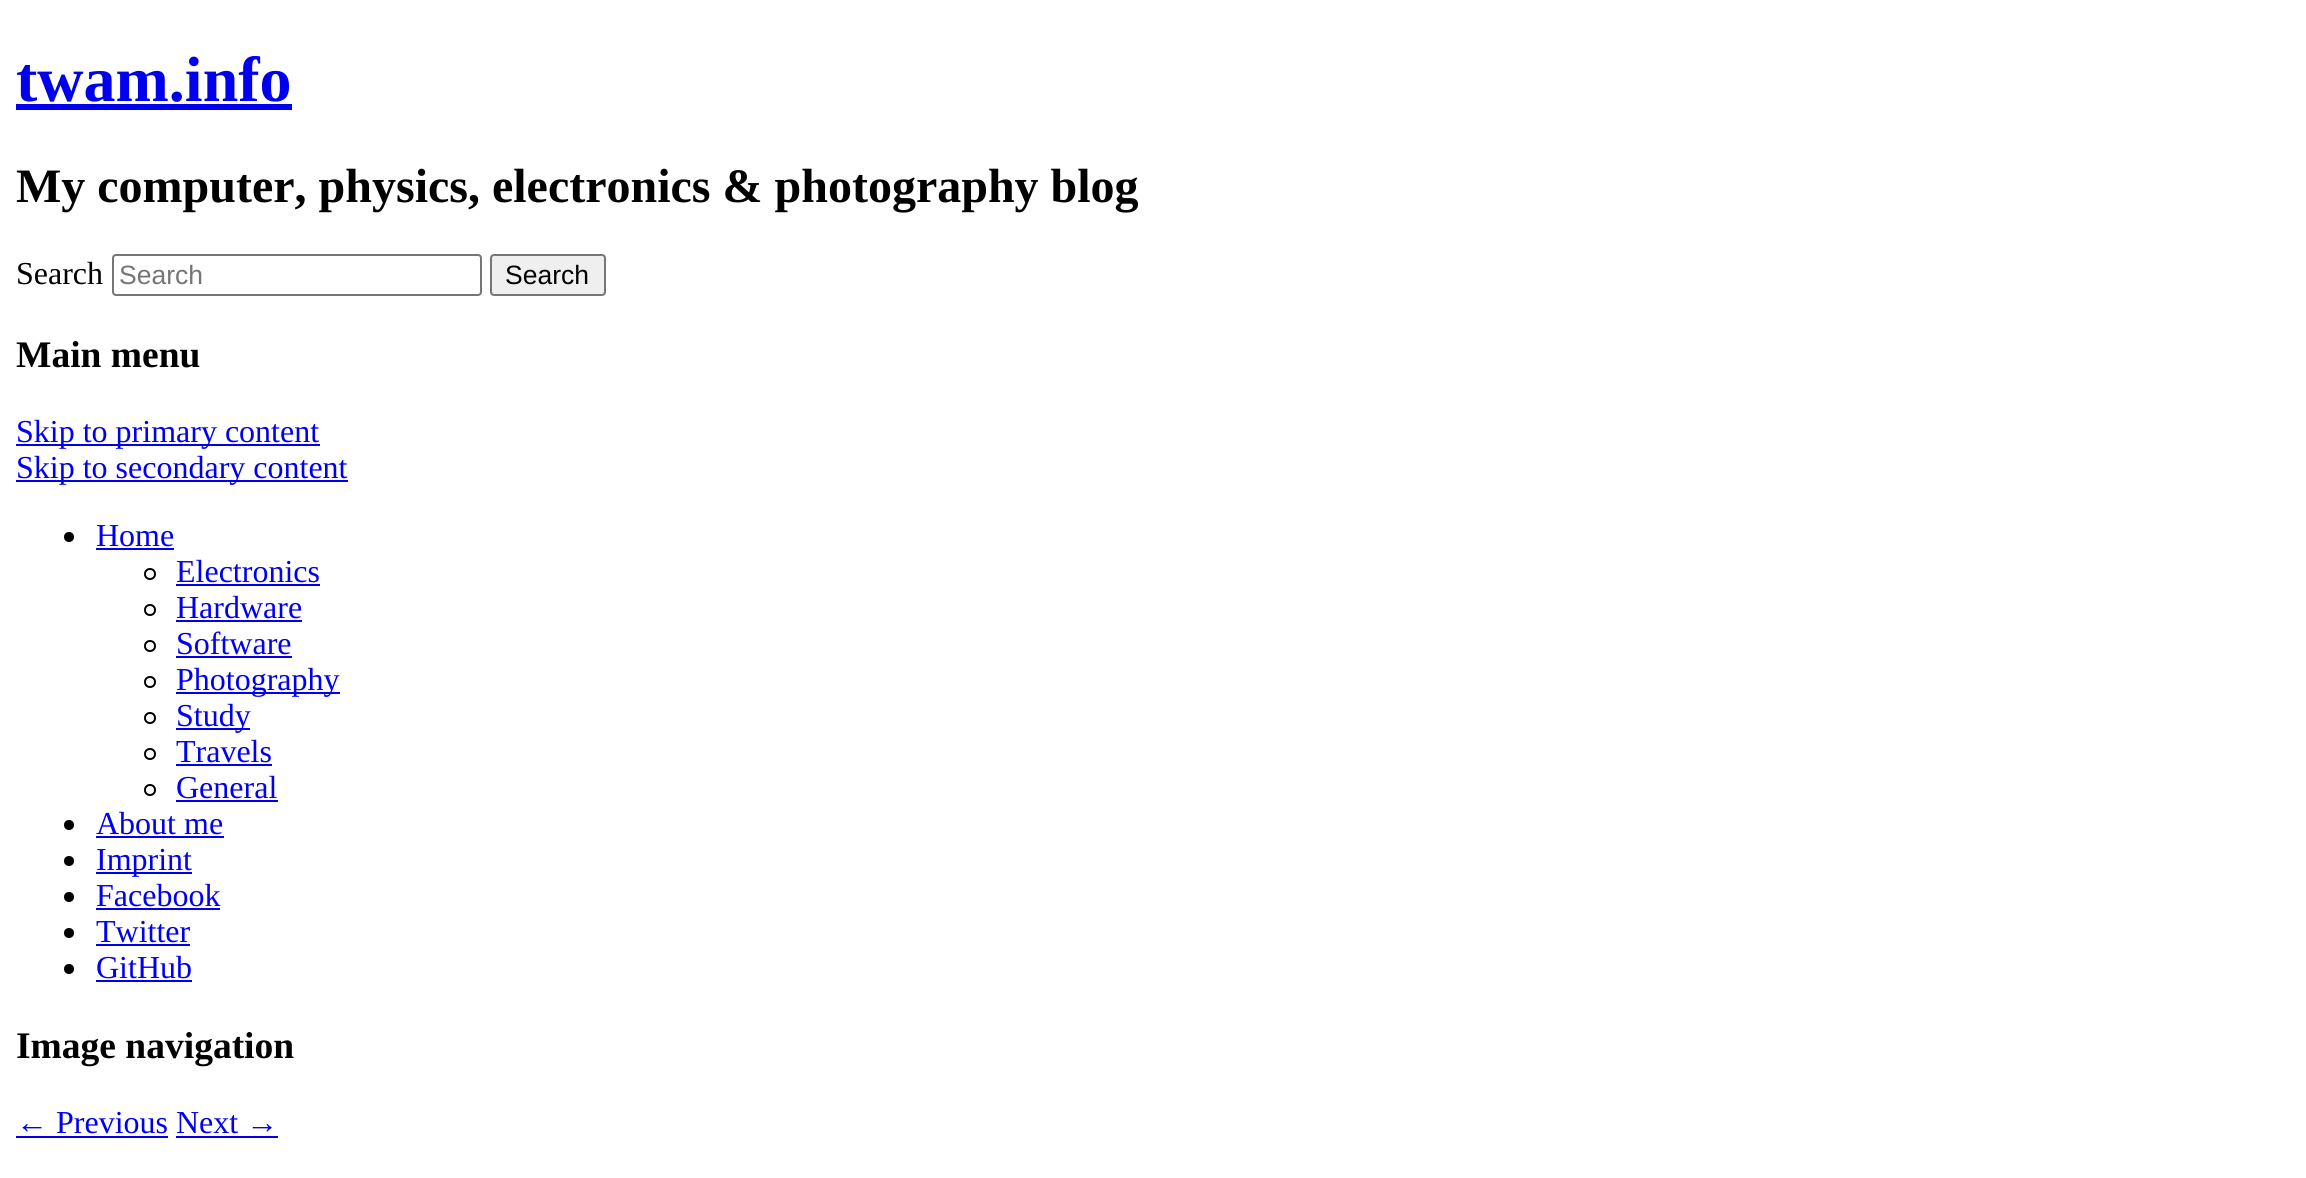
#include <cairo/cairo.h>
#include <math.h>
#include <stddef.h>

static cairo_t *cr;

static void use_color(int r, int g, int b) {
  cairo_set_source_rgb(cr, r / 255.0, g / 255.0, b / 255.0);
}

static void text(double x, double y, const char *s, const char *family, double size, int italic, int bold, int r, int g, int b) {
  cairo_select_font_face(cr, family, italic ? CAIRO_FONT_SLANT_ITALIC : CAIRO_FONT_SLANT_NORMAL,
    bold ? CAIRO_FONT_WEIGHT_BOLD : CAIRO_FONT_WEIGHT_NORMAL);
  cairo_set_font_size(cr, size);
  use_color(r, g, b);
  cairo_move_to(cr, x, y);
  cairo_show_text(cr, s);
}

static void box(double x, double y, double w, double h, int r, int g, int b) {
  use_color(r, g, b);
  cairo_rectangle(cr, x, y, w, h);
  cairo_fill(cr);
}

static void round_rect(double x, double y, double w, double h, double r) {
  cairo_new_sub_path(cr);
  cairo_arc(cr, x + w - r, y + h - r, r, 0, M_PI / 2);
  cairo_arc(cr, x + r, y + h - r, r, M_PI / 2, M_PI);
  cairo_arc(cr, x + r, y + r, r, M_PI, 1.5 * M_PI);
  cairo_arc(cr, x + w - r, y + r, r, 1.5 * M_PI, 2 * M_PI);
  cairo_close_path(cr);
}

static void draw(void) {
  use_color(255, 255, 255);
  cairo_paint(cr);
  box(16, 104, 276, 6, 0, 0, 238);
  round_rect(113, 255, 368, 40, 3);
  use_color(118, 118, 118);
  cairo_stroke(cr);
  use_color(239, 239, 239);
  round_rect(491, 255, 114, 40, 3);
  cairo_fill_preserve(cr);
  use_color(118, 118, 118);
  cairo_stroke(cr);
  box(16, 444, 304, 2, 0, 0, 238);
  box(16, 480, 332, 2, 0, 0, 238);
  use_color(0, 0, 0);
  cairo_arc(cr, 69, 537, 5, 0, 2 * M_PI);
  cairo_fill(cr);
  box(96, 548, 78, 2, 0, 0, 238);
  cairo_arc(cr, 150, 574, 5, 0, 2 * M_PI);
  use_color(0, 0, 0);
  cairo_stroke(cr);
  box(176, 584, 144, 2, 0, 0, 238);
  cairo_arc(cr, 150, 610, 5, 0, 2 * M_PI);
  use_color(0, 0, 0);
  cairo_stroke(cr);
  box(176, 620, 126, 2, 0, 0, 238);
  cairo_arc(cr, 150, 646, 5, 0, 2 * M_PI);
  use_color(0, 0, 0);
  cairo_stroke(cr);
  box(176, 656, 116, 2, 0, 0, 238);
  cairo_arc(cr, 150, 682, 5, 0, 2 * M_PI);
  use_color(0, 0, 0);
  cairo_stroke(cr);
  box(176, 692, 164, 2, 0, 0, 238);
  cairo_arc(cr, 150, 718, 5, 0, 2 * M_PI);
  use_color(0, 0, 0);
  cairo_stroke(cr);
  box(176, 728, 74, 2, 0, 0, 238);
  cairo_arc(cr, 150, 754, 5, 0, 2 * M_PI);
  use_color(0, 0, 0);
  cairo_stroke(cr);
  box(176, 764, 96, 2, 0, 0, 238);
  cairo_arc(cr, 150, 790, 5, 0, 2 * M_PI);
  use_color(0, 0, 0);
  cairo_stroke(cr);
  box(176, 800, 102, 2, 0, 0, 238);
  use_color(0, 0, 0);
  cairo_arc(cr, 69, 825, 5, 0, 2 * M_PI);
  cairo_fill(cr);
  box(96, 836, 128, 2, 0, 0, 238);
  use_color(0, 0, 0);
  cairo_arc(cr, 69, 861, 5, 0, 2 * M_PI);
  cairo_fill(cr);
  box(96, 872, 96, 2, 0, 0, 238);
  use_color(0, 0, 0);
  cairo_arc(cr, 69, 897, 5, 0, 2 * M_PI);
  cairo_fill(cr);
  box(96, 908, 124, 2, 0, 0, 238);
  use_color(0, 0, 0);
  cairo_arc(cr, 69, 933, 5, 0, 2 * M_PI);
  cairo_fill(cr);
  box(96, 944, 94, 2, 0, 0, 238);
  use_color(0, 0, 0);
  cairo_arc(cr, 69, 969, 5, 0, 2 * M_PI);
  cairo_fill(cr);
  box(96, 980, 96, 2, 0, 0, 238);
  box(16, 1136, 152, 2, 0, 0, 238);
  box(176, 1136, 102, 2, 0, 0, 238);
  text(16, 101, "twam.info", "Liberation Serif", 64, 0, 1, 0, 0, 238);
  text(16, 202, "My computer, physics, electronics & photography blog", "Liberation Serif", 48, 0, 1, 0, 0, 0);
  text(16, 284, "Search", "Liberation Serif", 32, 0, 0, 0, 0, 0);
  text(119, 284, "Search", "Liberation Sans", 26.5, 0, 0, 117, 117, 117);
  text(505, 284, "Search", "Liberation Sans", 26.5, 0, 0, 0, 0, 0);
  text(16, 367, "Main menu", "Liberation Serif", 37.5, 0, 1, 0, 0, 0);
  text(16, 442, "Skip to primary content", "Liberation Serif", 32, 0, 0, 0, 0, 238);
  text(16, 478, "Skip to secondary content", "Liberation Serif", 32, 0, 0, 0, 0, 238);
  text(96, 546, "Home", "Liberation Serif", 32, 0, 0, 0, 0, 238);
  text(176, 582, "Electronics", "Liberation Serif", 32, 0, 0, 0, 0, 238);
  text(176, 618, "Hardware", "Liberation Serif", 32, 0, 0, 0, 0, 238);
  text(176, 654, "Software", "Liberation Serif", 32, 0, 0, 0, 0, 238);
  text(176, 690, "Photography", "Liberation Serif", 32, 0, 0, 0, 0, 238);
  text(176, 726, "Study", "Liberation Serif", 32, 0, 0, 0, 0, 238);
  text(176, 762, "Travels", "Liberation Serif", 32, 0, 0, 0, 0, 238);
  text(176, 798, "General", "Liberation Serif", 32, 0, 0, 0, 0, 238);
  text(96, 834, "About me", "Liberation Serif", 32, 0, 0, 0, 0, 238);
  text(96, 870, "Imprint", "Liberation Serif", 32, 0, 0, 0, 0, 238);
  text(96, 906, "Facebook", "Liberation Serif", 32, 0, 0, 0, 0, 238);
  text(96, 942, "Twitter", "Liberation Serif", 32, 0, 0, 0, 0, 238);
  text(96, 978, "GitHub", "Liberation Serif", 32, 0, 0, 0, 0, 238);
  text(16, 1058, "Image navigation", "Liberation Serif", 37.5, 0, 1, 0, 0, 0);
  text(16, 1133, "← Previous Next →", "Liberation Serif", 32, 0, 0, 0, 0, 238);
}

int main(void) {
  cairo_surface_t *surface = cairo_image_surface_create(CAIRO_FORMAT_RGB24, 2306, 1178);
  cr = cairo_create(surface);
  cairo_font_options_t *options = cairo_font_options_create();
  cairo_font_options_set_hint_metrics(options, CAIRO_HINT_METRICS_OFF);
  cairo_font_options_set_hint_style(options, CAIRO_HINT_STYLE_NONE);
  cairo_set_font_options(cr, options);
  cairo_set_miter_limit(cr, 4);
  draw();
  cairo_surface_write_to_png(surface, "out.png");
  cairo_font_options_destroy(options);
  cairo_destroy(cr);
  cairo_surface_destroy(surface);
  return 0;
}
